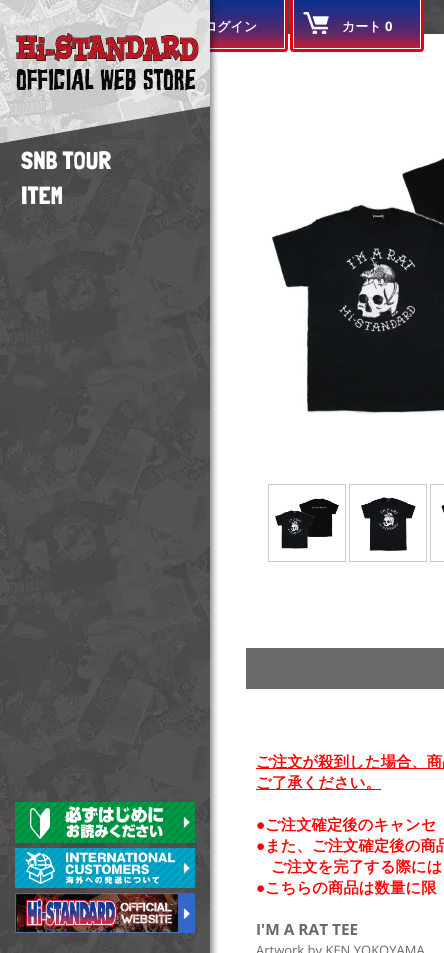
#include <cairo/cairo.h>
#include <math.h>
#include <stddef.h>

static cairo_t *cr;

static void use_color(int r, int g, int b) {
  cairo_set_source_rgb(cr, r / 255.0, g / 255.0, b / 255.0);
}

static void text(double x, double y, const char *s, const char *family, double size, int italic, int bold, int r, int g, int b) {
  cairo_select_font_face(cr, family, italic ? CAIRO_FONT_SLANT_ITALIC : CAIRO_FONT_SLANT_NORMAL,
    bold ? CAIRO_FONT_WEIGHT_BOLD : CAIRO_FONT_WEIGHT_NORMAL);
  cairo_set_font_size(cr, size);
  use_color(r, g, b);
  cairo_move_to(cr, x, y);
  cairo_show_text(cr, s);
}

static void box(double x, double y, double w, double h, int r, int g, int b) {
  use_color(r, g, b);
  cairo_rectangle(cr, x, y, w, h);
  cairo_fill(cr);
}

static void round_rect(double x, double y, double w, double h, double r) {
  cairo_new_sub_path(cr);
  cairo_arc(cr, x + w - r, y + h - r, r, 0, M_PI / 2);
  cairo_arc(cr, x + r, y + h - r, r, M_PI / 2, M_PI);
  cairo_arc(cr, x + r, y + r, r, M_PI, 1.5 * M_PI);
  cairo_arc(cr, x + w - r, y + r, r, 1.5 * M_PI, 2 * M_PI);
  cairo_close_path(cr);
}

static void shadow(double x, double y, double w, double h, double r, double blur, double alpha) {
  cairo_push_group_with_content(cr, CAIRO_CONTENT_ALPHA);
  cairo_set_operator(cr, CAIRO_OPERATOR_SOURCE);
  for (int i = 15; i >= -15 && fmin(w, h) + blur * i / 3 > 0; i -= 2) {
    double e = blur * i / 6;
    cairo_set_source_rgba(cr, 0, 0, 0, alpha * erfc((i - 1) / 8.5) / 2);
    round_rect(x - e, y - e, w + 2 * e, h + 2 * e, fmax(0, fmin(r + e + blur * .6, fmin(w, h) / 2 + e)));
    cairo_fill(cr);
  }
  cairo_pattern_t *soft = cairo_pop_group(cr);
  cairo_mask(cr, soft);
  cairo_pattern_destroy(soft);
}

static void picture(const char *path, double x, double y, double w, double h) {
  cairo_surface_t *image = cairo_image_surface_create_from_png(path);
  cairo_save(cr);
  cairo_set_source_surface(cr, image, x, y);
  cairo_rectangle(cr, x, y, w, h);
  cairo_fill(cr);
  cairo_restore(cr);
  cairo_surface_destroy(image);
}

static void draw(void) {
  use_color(255, 255, 255);
  cairo_paint(cr);
  picture("img_01.png", 288, 0, 156, 34);
  picture("img_02.png", 210, 0, 78, 52);
  picture("img_03.png", 290, 0, 134, 52);
  use_color(0, 0, 0);
  shadow(-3, -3, 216, 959, 0, 3, 0.46);
  picture("img_09.png", 271, 157, 173, 258);
  cairo_rectangle(cr, 268.5, 484.5, 77, 77);
  use_color(204, 204, 204);
  cairo_set_line_width(cr, 1);
  cairo_stroke(cr);
  picture("img_10.png", 275, 498, 64, 51);
  cairo_rectangle(cr, 349.5, 484.5, 77, 77);
  cairo_stroke(cr);
  picture("img_11.png", 361, 497, 55, 55);
  cairo_rectangle(cr, 430.5, 484.5, 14, 77);
  cairo_stroke(cr);
  picture("img_12.png", 441, 505, 3, 9);
  box(246, 648, 198, 41, 105, 105, 105);
  box(256, 768, 188, 1, 255, 0, 0);
  box(256, 789, 125, 1, 255, 0, 0);
  text(204, 31, "ログイン", "WenQuanYi Zen Hei", 13, 0, 1, 255, 255, 255);
  text(342, 31, "カート", "WenQuanYi Zen Hei", 13, 0, 1, 255, 255, 255);
  text(385, 31, "0", "Open Sans", 13, 0, 1, 255, 255, 255);
  picture("img_04.png", 0, 0, 210, 953);
  picture("img_05.png", 0, 0, 210, 144);
  text(21, 169, "SNB TOUR", "Londrina Solid", 25, 0, 0, 255, 255, 255);
  text(21, 204, "ITEM", "Londrina Solid", 25, 0, 0, 255, 255, 255);
  picture("img_06.png", 15, 802, 180, 41);
  picture("img_07.png", 15, 848, 180, 40);
  picture("img_08.png", 15, 893, 180, 40);
  text(256, 767, "ご注文が殺到した場合、商品", "WenQuanYi Zen Hei", 15.4, 0, 1, 255, 0, 0);
  text(256, 788, "ご了承ください。", "WenQuanYi Zen Hei", 15.4, 0, 1, 255, 0, 0);
  text(256, 830, "●", "Liberation Sans", 15.4, 0, 1, 255, 0, 0);
  text(265, 830, "ご注文確定後のキャンセ", "WenQuanYi Zen Hei", 15.4, 0, 1, 255, 0, 0);
  text(256, 851, "●", "Liberation Sans", 15.4, 0, 1, 255, 0, 0);
  text(265, 851, "また、ご注文確定後の商品", "WenQuanYi Zen Hei", 15.4, 0, 1, 255, 0, 0);
  text(271, 872, "ご注文を完了する際には", "WenQuanYi Zen Hei", 15.4, 0, 1, 255, 0, 0);
  text(256, 893, "●", "Liberation Sans", 15.4, 0, 1, 255, 0, 0);
  text(265, 893, "こちらの商品は数量に限", "WenQuanYi Zen Hei", 15.4, 0, 1, 255, 0, 0);
  text(256, 935, "I'M A RAT TEE", "Open Sans", 15.4, 0, 1, 105, 105, 105);
  text(256, 955, "Artwork by KEN YOKOYAMA", "Open Sans", 13, 0, 0, 105, 105, 105);
}

int main(void) {
  cairo_surface_t *surface = cairo_image_surface_create(CAIRO_FORMAT_RGB24, 444, 953);
  cr = cairo_create(surface);
  cairo_font_options_t *options = cairo_font_options_create();
  cairo_font_options_set_hint_metrics(options, CAIRO_HINT_METRICS_OFF);
  cairo_font_options_set_hint_style(options, CAIRO_HINT_STYLE_NONE);
  cairo_set_font_options(cr, options);
  cairo_set_miter_limit(cr, 4);
  draw();
  cairo_surface_write_to_png(surface, "out.png");
  cairo_font_options_destroy(options);
  cairo_destroy(cr);
  cairo_surface_destroy(surface);
  return 0;
}
